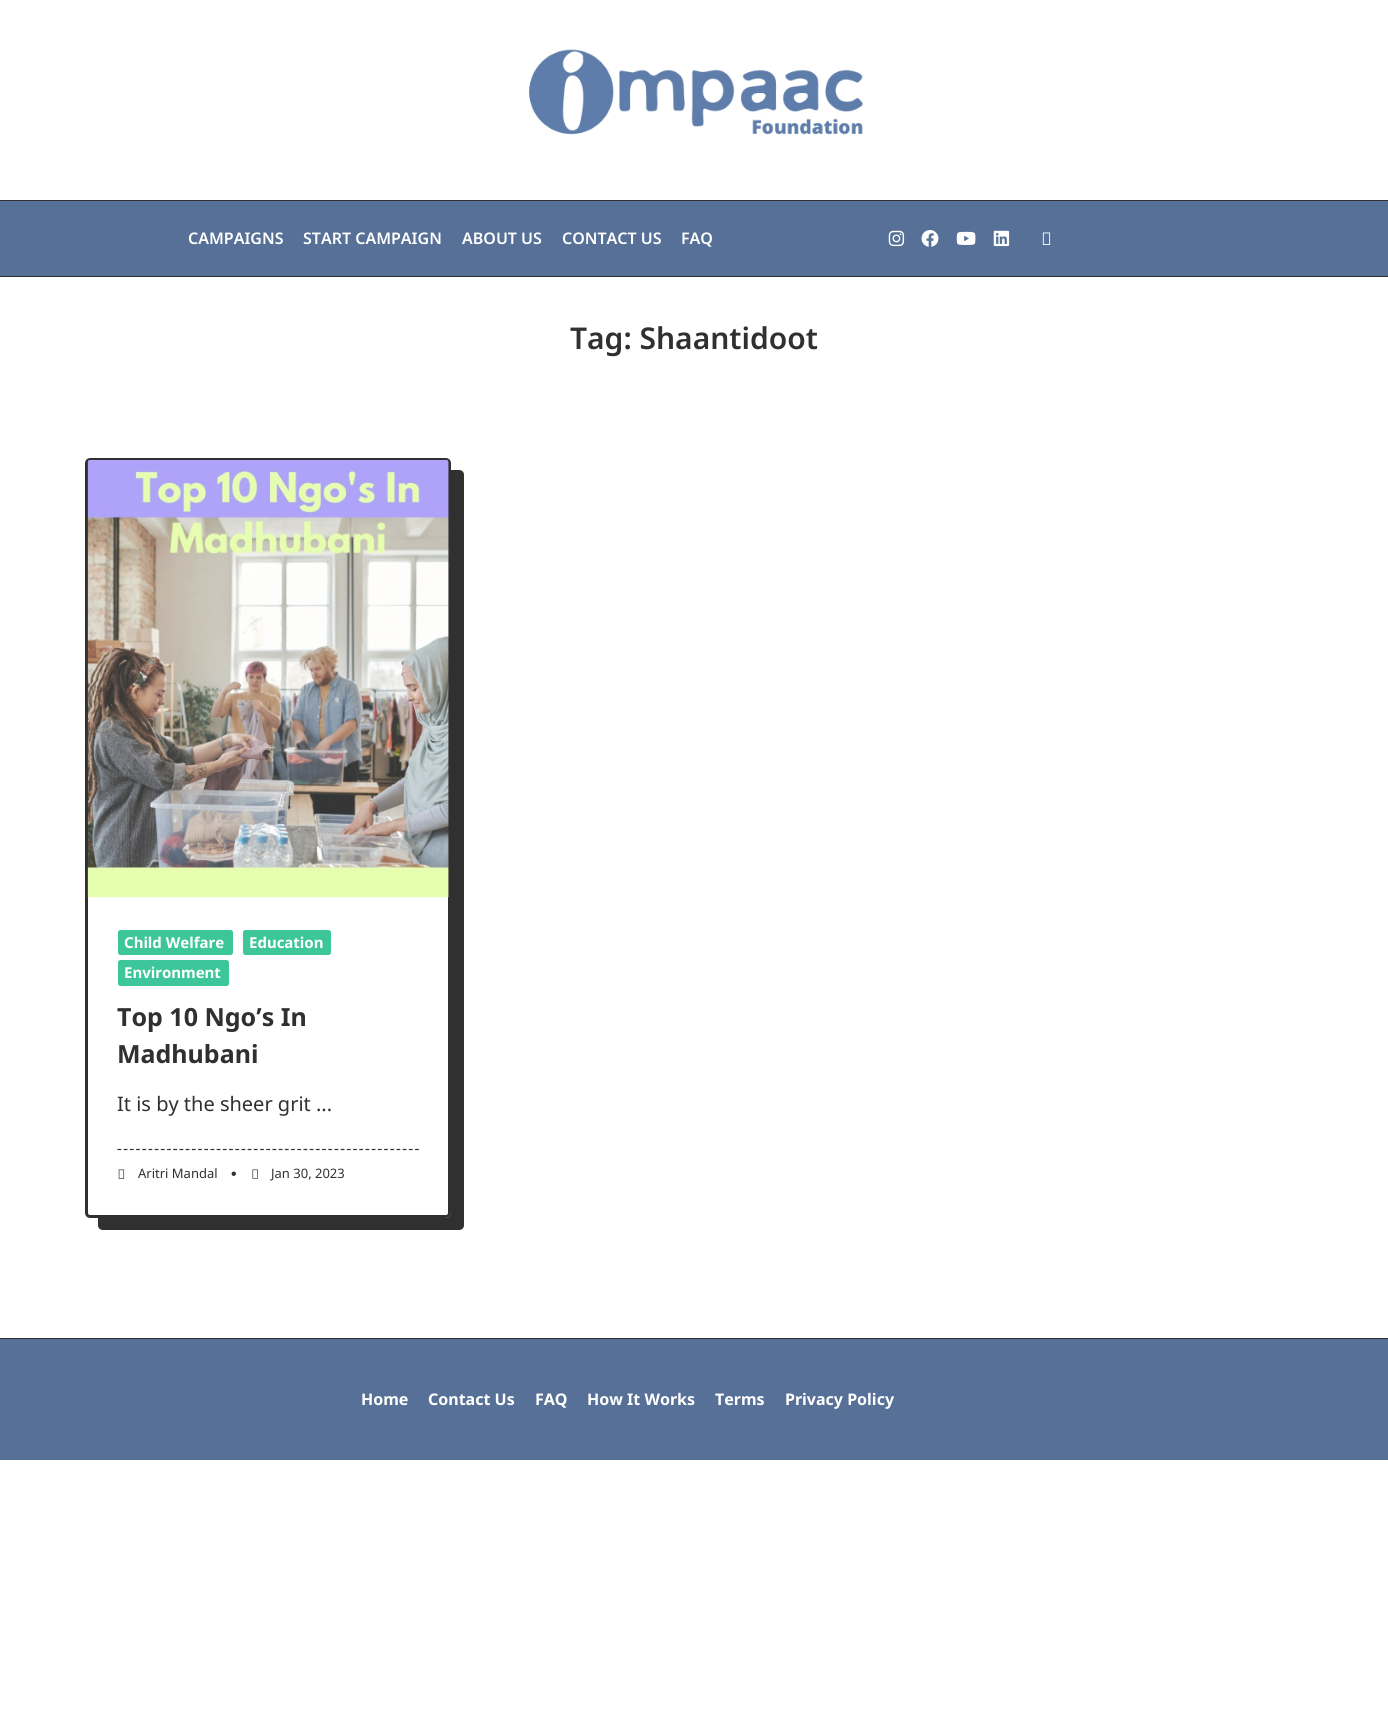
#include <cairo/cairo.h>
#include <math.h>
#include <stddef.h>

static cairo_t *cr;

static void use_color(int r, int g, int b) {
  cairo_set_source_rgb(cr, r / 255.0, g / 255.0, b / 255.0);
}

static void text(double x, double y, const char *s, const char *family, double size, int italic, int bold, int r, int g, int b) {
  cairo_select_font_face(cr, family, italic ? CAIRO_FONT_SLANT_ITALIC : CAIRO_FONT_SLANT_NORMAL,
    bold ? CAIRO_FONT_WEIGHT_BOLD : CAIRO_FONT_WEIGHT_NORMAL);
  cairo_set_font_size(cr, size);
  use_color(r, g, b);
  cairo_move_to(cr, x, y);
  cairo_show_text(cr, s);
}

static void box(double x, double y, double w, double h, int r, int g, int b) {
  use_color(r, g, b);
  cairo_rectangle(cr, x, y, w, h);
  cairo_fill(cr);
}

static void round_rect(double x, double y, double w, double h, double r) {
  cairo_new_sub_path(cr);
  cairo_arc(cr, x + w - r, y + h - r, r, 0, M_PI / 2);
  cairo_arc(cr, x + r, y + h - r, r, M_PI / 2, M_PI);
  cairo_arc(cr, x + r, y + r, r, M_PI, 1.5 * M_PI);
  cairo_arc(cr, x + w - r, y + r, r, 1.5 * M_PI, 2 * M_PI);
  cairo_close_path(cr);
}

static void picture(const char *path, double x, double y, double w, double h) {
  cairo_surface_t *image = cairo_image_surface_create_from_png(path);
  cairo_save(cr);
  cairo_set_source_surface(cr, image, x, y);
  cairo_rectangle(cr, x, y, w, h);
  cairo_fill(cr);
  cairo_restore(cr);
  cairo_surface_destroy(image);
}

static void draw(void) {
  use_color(255, 255, 255);
  cairo_paint(cr);
  picture("img_01.png", 529, 49, 334, 86);
  box(0, 201, 1388, 75, 86, 112, 151);
  box(0, 200, 1388, 1, 48, 48, 48);
  box(0, 276, 1388, 1, 48, 48, 48);
  picture("img_02.png", 888, 230, 17, 17);
  picture("img_03.png", 921, 230, 18, 17);
  picture("img_04.png", 956, 231, 20, 14);
  picture("img_05.png", 993, 230, 17, 17);
  picture("img_06.png", 1042, 232, 9, 13);
  cairo_new_path(cr);
  cairo_move_to(cr, 98, 1218);
  cairo_line_to(cr, 98, 1225);
  cairo_curve_to(cr, 98, 1228, 100, 1230, 103, 1230);
  cairo_line_to(cr, 459, 1230);
  cairo_curve_to(cr, 462, 1230, 464, 1228, 464, 1225);
  cairo_line_to(cr, 464, 475);
  cairo_curve_to(cr, 464, 472, 462, 470, 459, 470);
  cairo_line_to(cr, 451, 470);
  cairo_line_to(cr, 451, 1212);
  cairo_curve_to(cr, 451, 1215, 449, 1218, 446, 1218);
  cairo_close_path(cr);
  cairo_fill(cr);
  use_color(255, 255, 255);
  round_rect(86.5, 459.5, 363, 757, 3.5);
  cairo_fill_preserve(cr);
  use_color(48, 48, 48);
  cairo_set_line_width(cr, 3);
  cairo_stroke(cr);
  picture("img_07.png", 87, 460, 362, 438);
  use_color(61, 198, 153);
  round_rect(118, 930, 115, 25, 2.5);
  cairo_fill(cr);
  round_rect(243, 930, 88, 25, 2.5);
  cairo_fill(cr);
  round_rect(118, 960, 111, 26, 2.5);
  cairo_fill(cr);
  cairo_new_path(cr);
  cairo_move_to(cr, 117.5, 1149.5);
  cairo_line_to(cr, 419, 1149.5);
  use_color(48, 48, 48);
  cairo_set_line_width(cr, 1.2);
  cairo_set_dash(cr, (double[]){3.75, 2.45}, 2, 0);
  cairo_stroke(cr);
  picture("img_08.png", 118, 1169, 7, 10);
  picture("img_09.png", 231, 1171, 5, 5);
  picture("img_10.png", 252, 1169, 6, 10);
  box(0, 1339, 1388, 121, 86, 112, 151);
  box(0, 1338, 1388, 1, 48, 48, 48);
  text(188, 244, "CAMPAIGNS", "Noto Sans SemiBold", 16, 0, 0, 255, 255, 255);
  text(303, 244, "START CAMPAIGN", "Noto Sans SemiBold", 16, 0, 0, 255, 255, 255);
  text(462, 244, "ABOUT US", "Noto Sans SemiBold", 16, 0, 0, 255, 255, 255);
  text(562, 244, "CONTACT US", "Noto Sans SemiBold", 16, 0, 0, 255, 255, 255);
  text(681, 244, "FAQ", "Noto Sans SemiBold", 16, 0, 0, 255, 255, 255);
  text(570, 349, "Tag: Shaantidoot", "Noto Sans SemiBold", 30, 0, 0, 48, 48, 48);
  text(124, 948, "Child Welfare", "Noto Sans", 15, 0, 1, 255, 255, 255);
  text(249, 948, "Education", "Noto Sans", 15, 0, 1, 255, 255, 255);
  text(124, 978, "Environment", "Noto Sans", 15, 0, 1, 255, 255, 255);
  text(117, 1026, "Top 10 Ngo’s In", "Noto Sans", 25, 0, 1, 48, 48, 48);
  text(117, 1063, "Madhubani", "Noto Sans", 25, 0, 1, 48, 48, 48);
  text(117, 1111, "It is by the sheer grit ...", "Noto Sans", 20, 0, 0, 48, 48, 48);
  text(138, 1178, "Aritri Mandal", "Noto Sans", 13, 0, 0, 48, 48, 48);
  text(271, 1178, "Jan 30, 2023", "Noto Sans", 13, 0, 0, 48, 48, 48);
  text(361, 1405, "Home", "Noto Sans", 16, 0, 1, 255, 255, 255);
  text(428, 1405, "Contact Us", "Noto Sans", 16, 0, 1, 255, 255, 255);
  text(535, 1405, "FAQ", "Noto Sans", 16, 0, 1, 255, 255, 255);
  text(587, 1405, "How It Works", "Noto Sans", 16, 0, 1, 255, 255, 255);
  text(715, 1405, "Terms", "Noto Sans", 16, 0, 1, 255, 255, 255);
  text(785, 1405, "Privacy Policy", "Noto Sans", 16, 0, 1, 255, 255, 255);
}

int main(void) {
  cairo_surface_t *surface = cairo_image_surface_create(CAIRO_FORMAT_RGB24, 1388, 1729);
  cr = cairo_create(surface);
  cairo_font_options_t *options = cairo_font_options_create();
  cairo_font_options_set_hint_metrics(options, CAIRO_HINT_METRICS_OFF);
  cairo_font_options_set_hint_style(options, CAIRO_HINT_STYLE_NONE);
  cairo_set_font_options(cr, options);
  cairo_set_miter_limit(cr, 4);
  draw();
  cairo_surface_write_to_png(surface, "out.png");
  cairo_font_options_destroy(options);
  cairo_destroy(cr);
  cairo_surface_destroy(surface);
  return 0;
}
